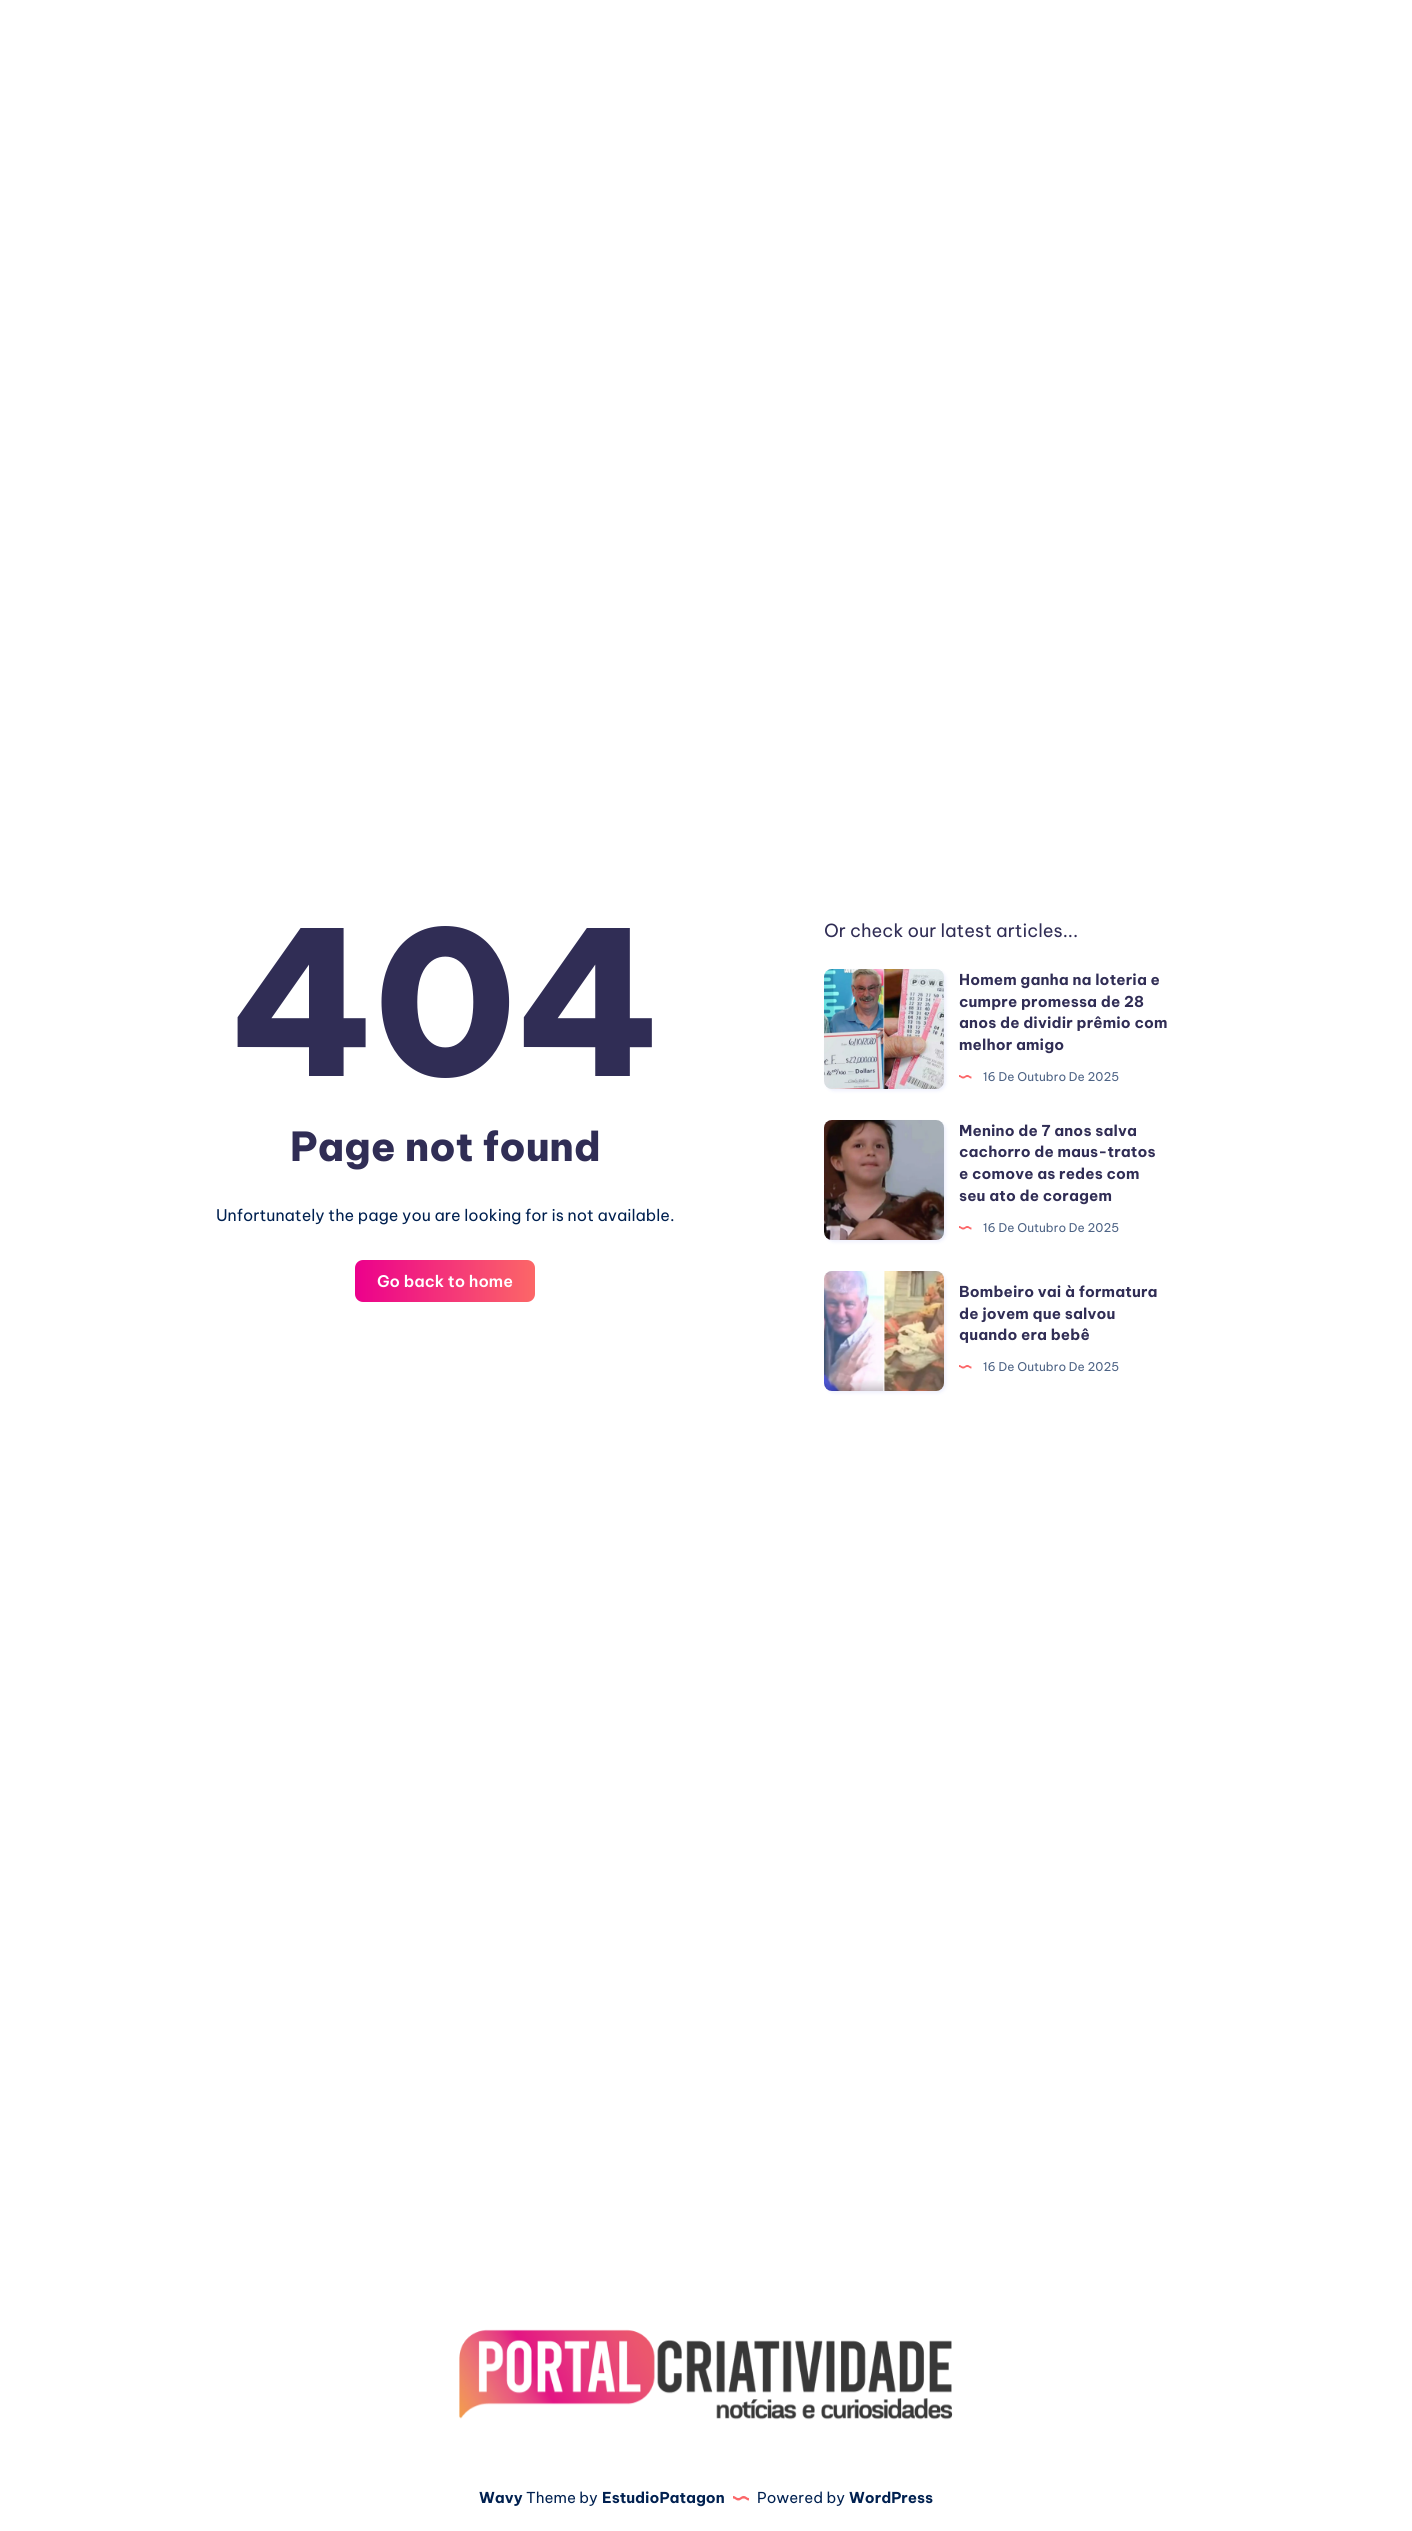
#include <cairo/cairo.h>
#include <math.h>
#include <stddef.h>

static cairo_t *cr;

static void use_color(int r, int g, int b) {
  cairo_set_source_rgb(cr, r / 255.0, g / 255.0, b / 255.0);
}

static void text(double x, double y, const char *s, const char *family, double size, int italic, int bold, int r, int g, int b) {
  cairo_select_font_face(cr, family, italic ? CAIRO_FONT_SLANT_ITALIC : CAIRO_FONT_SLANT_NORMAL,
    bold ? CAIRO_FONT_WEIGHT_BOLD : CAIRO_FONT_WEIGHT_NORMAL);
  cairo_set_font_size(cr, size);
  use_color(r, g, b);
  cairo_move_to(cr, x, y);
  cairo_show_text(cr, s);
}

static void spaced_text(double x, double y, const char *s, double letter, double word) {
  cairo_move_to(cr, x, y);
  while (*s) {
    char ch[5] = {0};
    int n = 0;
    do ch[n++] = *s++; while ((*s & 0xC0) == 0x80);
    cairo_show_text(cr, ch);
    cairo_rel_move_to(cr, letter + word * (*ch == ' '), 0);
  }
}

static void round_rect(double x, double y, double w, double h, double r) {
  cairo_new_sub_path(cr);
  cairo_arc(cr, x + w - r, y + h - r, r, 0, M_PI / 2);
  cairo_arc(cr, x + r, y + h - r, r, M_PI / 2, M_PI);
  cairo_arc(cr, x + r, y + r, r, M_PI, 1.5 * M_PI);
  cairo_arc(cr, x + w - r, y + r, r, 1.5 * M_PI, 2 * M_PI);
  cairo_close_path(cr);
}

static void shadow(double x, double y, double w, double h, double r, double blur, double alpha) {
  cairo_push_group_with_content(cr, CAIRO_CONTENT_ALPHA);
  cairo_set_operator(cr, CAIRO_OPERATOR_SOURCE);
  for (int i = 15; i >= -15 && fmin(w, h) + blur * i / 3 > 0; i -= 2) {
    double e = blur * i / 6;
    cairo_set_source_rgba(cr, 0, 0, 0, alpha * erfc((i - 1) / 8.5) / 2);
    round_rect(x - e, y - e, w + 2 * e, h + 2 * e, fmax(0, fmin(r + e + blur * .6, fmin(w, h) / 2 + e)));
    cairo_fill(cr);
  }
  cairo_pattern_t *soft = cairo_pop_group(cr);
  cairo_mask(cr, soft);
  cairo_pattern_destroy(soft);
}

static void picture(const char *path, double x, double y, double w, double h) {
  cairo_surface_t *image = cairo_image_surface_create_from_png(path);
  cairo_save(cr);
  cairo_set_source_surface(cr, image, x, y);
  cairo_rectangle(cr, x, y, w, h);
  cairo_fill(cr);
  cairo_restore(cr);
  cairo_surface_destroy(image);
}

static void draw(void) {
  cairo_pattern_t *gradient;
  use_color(255, 255, 255);
  cairo_paint(cr);
  gradient = cairo_pattern_create_linear(355, 1281, 535, 1281);
  cairo_pattern_add_color_stop_rgba(gradient, 0, 0.925, 0, 0.549, 1);
  cairo_pattern_add_color_stop_rgba(gradient, 1, 0.988, 0.404, 0.404, 1);
  cairo_set_source(cr, gradient);
  cairo_pattern_destroy(gradient);
  round_rect(355, 1260, 180, 42, 8);
  cairo_fill(cr);
  use_color(93, 112, 234);
  shadow(826, 971, 120, 120, 8, 1.5, 0.1);
  picture("img_01.png", 824, 969, 120, 120);
  picture("img_02.png", 959, 1075, 13, 4);
  shadow(826, 1122, 120, 120, 8, 1.5, 0.1);
  picture("img_03.png", 824, 1120, 120, 120);
  picture("img_02.png", 959, 1226, 13, 4);
  shadow(826, 1273, 120, 120, 8, 1.5, 0.1);
  picture("img_04.png", 824, 1271, 120, 120);
  picture("img_02.png", 959, 1365, 13, 4);
  picture("img_05.png", 459, 2329, 494, 91);
  picture("img_06.png", 733, 2496, 16, 5);
  text(230, 1076, "404", "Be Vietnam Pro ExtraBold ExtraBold", 200, 0, 0, 48, 45, 85);
  text(290, 1161, "Page not found", "Be Vietnam Pro ExtraBold ExtraBold", 40, 0, 0, 48, 45, 85);
  text(216, 1221, "Unfortunately the page you are looking for is not available.", "Be Vietnam Pro", 16, 0, 0, 0, 32, 80);
  text(377, 1287, "Go back to home", "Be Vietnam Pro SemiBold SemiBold", 16, 0, 0, 255, 255, 255);
  text(824, 937, "Or check our latest articles...", "Be Vietnam Pro", 18, 0, 0, 48, 45, 85);
  cairo_select_font_face(cr, "Be Vietnam Pro", CAIRO_FONT_SLANT_NORMAL, CAIRO_FONT_WEIGHT_BOLD);
  cairo_set_font_size(cr, 15);
  spaced_text(959, 985, "Homem ganha na loteria e", 0.15, 0);
  spaced_text(959, 1007, "cumpre promessa de 28", 0.15, 0);
  spaced_text(959, 1028, "anos de dividir prêmio com", 0.15, 0);
  spaced_text(959, 1050, "melhor amigo", 0.15, 0);
  text(983, 1081, "16 De Outubro De 2025", "Be Vietnam Pro", 12, 0, 0, 77, 99, 133);
  cairo_select_font_face(cr, "Be Vietnam Pro", CAIRO_FONT_SLANT_NORMAL, CAIRO_FONT_WEIGHT_BOLD);
  cairo_set_font_size(cr, 15);
  use_color(48, 45, 85);
  spaced_text(959, 1136, "Menino de 7 anos salva", 0.15, 0);
  spaced_text(959, 1157, "cachorro de maus-tratos", 0.15, 0);
  spaced_text(959, 1179, "e comove as redes com", 0.15, 0);
  spaced_text(959, 1201, "seu ato de coragem", 0.15, 0);
  text(983, 1232, "16 De Outubro De 2025", "Be Vietnam Pro", 12, 0, 0, 77, 99, 133);
  cairo_select_font_face(cr, "Be Vietnam Pro", CAIRO_FONT_SLANT_NORMAL, CAIRO_FONT_WEIGHT_BOLD);
  cairo_set_font_size(cr, 15);
  use_color(48, 45, 85);
  spaced_text(959, 1297, "Bombeiro vai à formatura", 0.15, 0);
  spaced_text(959, 1319, "de jovem que salvou", 0.15, 0);
  spaced_text(959, 1340, "quando era bebê", 0.15, 0);
  text(983, 1371, "16 De Outubro De 2025", "Be Vietnam Pro", 12, 0, 0, 77, 99, 133);
  text(479, 2503, "Wavy", "Be Vietnam Pro", 15, 0, 1, 0, 32, 80);
  text(526, 2503, "Theme by", "Be Vietnam Pro", 15, 0, 0, 0, 32, 80);
  text(602, 2503, "EstudioPatagon", "Be Vietnam Pro", 15, 0, 1, 0, 32, 80);
  text(757, 2503, "Powered by", "Be Vietnam Pro", 15, 0, 0, 0, 32, 80);
  text(849, 2503, "WordPress", "Be Vietnam Pro", 15, 0, 1, 0, 32, 80);
}

int main(void) {
  cairo_surface_t *surface = cairo_image_surface_create(CAIRO_FORMAT_RGB24, 1412, 2531);
  cr = cairo_create(surface);
  cairo_font_options_t *options = cairo_font_options_create();
  cairo_font_options_set_hint_metrics(options, CAIRO_HINT_METRICS_OFF);
  cairo_font_options_set_hint_style(options, CAIRO_HINT_STYLE_NONE);
  cairo_set_font_options(cr, options);
  cairo_set_miter_limit(cr, 4);
  draw();
  cairo_surface_write_to_png(surface, "out.png");
  cairo_font_options_destroy(options);
  cairo_destroy(cr);
  cairo_surface_destroy(surface);
  return 0;
}
